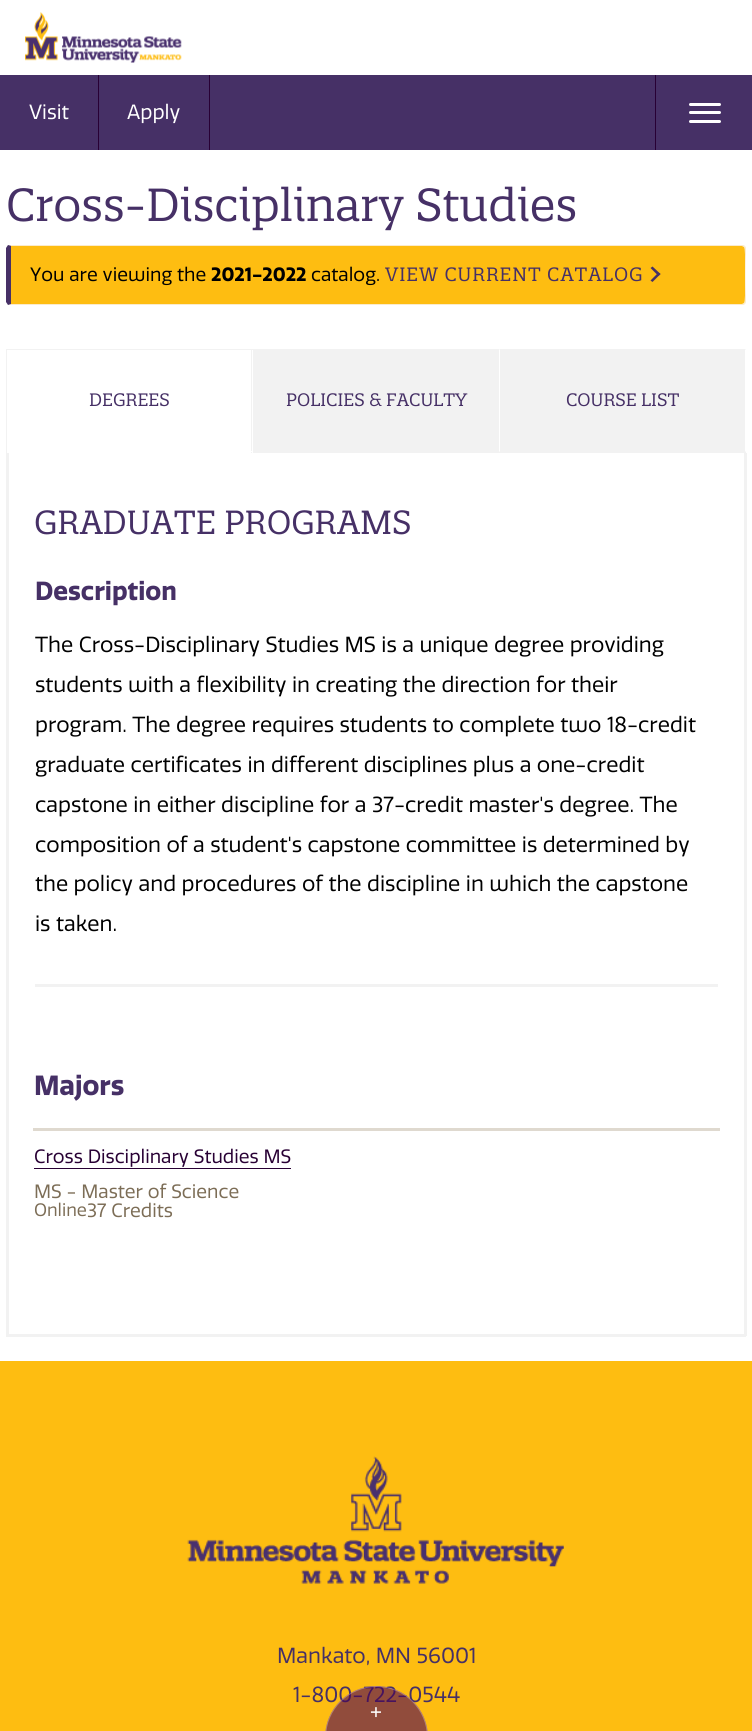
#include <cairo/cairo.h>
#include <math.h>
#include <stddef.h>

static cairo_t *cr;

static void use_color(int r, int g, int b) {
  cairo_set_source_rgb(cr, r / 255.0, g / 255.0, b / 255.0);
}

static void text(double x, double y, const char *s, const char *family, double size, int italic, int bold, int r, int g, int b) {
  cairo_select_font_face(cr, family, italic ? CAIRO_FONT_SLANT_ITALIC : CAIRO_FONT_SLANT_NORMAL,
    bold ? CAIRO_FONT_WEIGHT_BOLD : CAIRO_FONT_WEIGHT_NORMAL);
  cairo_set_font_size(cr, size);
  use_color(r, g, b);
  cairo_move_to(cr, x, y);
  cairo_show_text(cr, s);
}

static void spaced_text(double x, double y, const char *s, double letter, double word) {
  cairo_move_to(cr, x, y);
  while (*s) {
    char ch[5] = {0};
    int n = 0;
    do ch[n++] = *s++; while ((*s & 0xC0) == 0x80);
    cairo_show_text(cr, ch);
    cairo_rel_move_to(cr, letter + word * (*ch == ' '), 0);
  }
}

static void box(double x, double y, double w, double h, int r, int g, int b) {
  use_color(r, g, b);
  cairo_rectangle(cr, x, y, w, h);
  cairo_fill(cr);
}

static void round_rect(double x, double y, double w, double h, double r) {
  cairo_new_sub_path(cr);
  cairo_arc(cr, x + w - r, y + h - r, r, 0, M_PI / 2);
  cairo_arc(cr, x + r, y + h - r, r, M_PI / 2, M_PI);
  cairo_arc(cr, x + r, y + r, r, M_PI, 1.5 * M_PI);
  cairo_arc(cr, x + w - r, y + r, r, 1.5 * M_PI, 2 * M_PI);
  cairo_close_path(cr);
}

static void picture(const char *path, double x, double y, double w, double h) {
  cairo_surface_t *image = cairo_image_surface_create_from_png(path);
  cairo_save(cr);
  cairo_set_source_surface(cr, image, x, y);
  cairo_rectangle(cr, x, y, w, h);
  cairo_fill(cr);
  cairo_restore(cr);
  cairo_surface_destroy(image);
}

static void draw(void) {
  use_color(255, 255, 255);
  cairo_paint(cr);
  picture("img_01.png", 25, 12, 157, 51);
  box(0, 75, 752, 75, 70, 48, 102);
  box(98, 75, 1, 75, 40, 0, 52);
  box(209, 75, 1, 75, 40, 0, 52);
  box(655, 75, 1, 75, 40, 0, 52);
  use_color(255, 255, 255);
  round_rect(689, 103, 32, 3, 1.5);
  cairo_fill(cr);
  round_rect(689, 111, 32, 3, 1.5);
  cairo_fill(cr);
  round_rect(689, 120, 32, 3, 1.5);
  cairo_fill(cr);
  use_color(254, 189, 17);
  cairo_new_path(cr);
  cairo_move_to(cr, 11, 246);
  cairo_line_to(cr, 742, 246);
  cairo_curve_to(cr, 744, 246, 745, 247, 745, 249);
  cairo_line_to(cr, 745, 301);
  cairo_curve_to(cr, 745, 303, 744, 304, 742, 304);
  cairo_line_to(cr, 11, 304);
  cairo_close_path(cr);
  cairo_fill(cr);
  use_color(250, 235, 204);
  cairo_new_path(cr);
  cairo_move_to(cr, 10, 245);
  cairo_line_to(cr, 8, 245);
  cairo_line_to(cr, 11, 246);
  cairo_line_to(cr, 742, 246);
  cairo_line_to(cr, 744, 247);
  cairo_line_to(cr, 745, 246);
  cairo_curve_to(cr, 744, 245, 743, 245, 742, 245);
  cairo_close_path(cr);
  cairo_fill(cr);
  cairo_new_path(cr);
  cairo_move_to(cr, 745, 246);
  cairo_curve_to(cr, 746, 247, 746, 248, 746, 249);
  cairo_line_to(cr, 746, 301);
  cairo_curve_to(cr, 746, 302, 746, 303, 745, 304);
  cairo_line_to(cr, 744, 303);
  cairo_curve_to(cr, 746, 302, 746, 248, 744, 247);
  cairo_close_path(cr);
  cairo_fill(cr);
  cairo_new_path(cr);
  cairo_move_to(cr, 10, 305);
  cairo_line_to(cr, 742, 305);
  cairo_curve_to(cr, 743, 305, 744, 305, 745, 304);
  cairo_line_to(cr, 744, 303);
  cairo_line_to(cr, 742, 304);
  cairo_line_to(cr, 11, 304);
  cairo_line_to(cr, 8, 305);
  cairo_close_path(cr);
  cairo_fill(cr);
  use_color(70, 48, 102);
  cairo_new_path(cr);
  cairo_move_to(cr, 6, 248);
  cairo_line_to(cr, 8, 245);
  cairo_line_to(cr, 11, 246);
  cairo_line_to(cr, 11, 304);
  cairo_line_to(cr, 8, 305);
  cairo_line_to(cr, 6, 302);
  cairo_close_path(cr);
  cairo_fill(cr);
  cairo_new_path(cr);
  cairo_move_to(cr, 650.5, 268);
  cairo_line_to(cr, 652.5, 266.5);
  cairo_line_to(cr, 660.5, 274);
  cairo_line_to(cr, 658.5, 276);
  cairo_close_path(cr);
  cairo_fill(cr);
  cairo_new_path(cr);
  cairo_move_to(cr, 650.5, 280.5);
  cairo_line_to(cr, 658.5, 272.5);
  cairo_line_to(cr, 660.5, 274);
  cairo_line_to(cr, 652.5, 282);
  cairo_close_path(cr);
  cairo_fill(cr);
  box(6, 349, 247, 1, 242, 242, 242);
  box(251, 349, 1, 104, 242, 242, 242);
  box(251, 451, 2, 1, 255, 255, 255);
  box(6, 349, 1, 104, 242, 242, 242);
  box(253, 349, 493, 104, 242, 242, 242);
  use_color(255, 255, 255);
  cairo_new_path(cr);
  cairo_move_to(cr, 500, 349);
  cairo_line_to(cr, 500, 452);
  cairo_line_to(cr, 499, 451);
  cairo_line_to(cr, 499, 350);
  cairo_close_path(cr);
  cairo_fill(cr);
  cairo_new_path(cr);
  cairo_move_to(cr, 746, 349);
  cairo_line_to(cr, 746, 452);
  cairo_line_to(cr, 745, 451);
  cairo_line_to(cr, 745, 350);
  cairo_close_path(cr);
  cairo_fill(cr);
  box(744, 453, 3, 883, 242, 242, 242);
  box(6, 1334, 740, 3, 242, 242, 242);
  box(6, 453, 3, 883, 242, 242, 242);
  box(35, 984, 683, 3, 242, 242, 242);
  box(33, 1128, 687, 3, 223, 217, 207);
  box(34, 1168, 257, 1, 40, 0, 52);
  box(0, 1361, 752, 370, 254, 189, 17);
  picture("img_02.png", 187, 1456, 377, 128);
  text(29, 119, "Visit", "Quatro", 20, 0, 0, 255, 255, 255);
  text(127, 119, "Apply", "Quatro", 20, 0, 0, 255, 255, 255);
  text(6, 221, "Cross-Disciplinary Studies", "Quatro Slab", 45, 0, 0, 70, 48, 102);
  text(30, 281, "You are viewing the", "Quatro", 18.75, 0, 0, 0, 0, 0);
  text(211, 281, "2021-2022", "Quatro", 18.75, 0, 1, 0, 0, 0);
  text(311, 281, "catalog.", "Quatro", 18.75, 0, 0, 0, 0, 0);
  cairo_select_font_face(cr, "Quatro Slab", CAIRO_FONT_SLANT_NORMAL, CAIRO_FONT_WEIGHT_NORMAL);
  use_color(70, 48, 102);
  spaced_text(385, 281, "VIEW CURRENT CATALOG", 0.9, 0);
  text(89, 406, "DEGREES", "Quatro Slab", 17.5, 0, 0, 70, 48, 102);
  text(286, 406, "POLICIES & FACULTY", "Quatro Slab", 17.5, 0, 0, 70, 48, 102);
  text(566, 406, "COURSE LIST", "Quatro Slab", 17.5, 0, 0, 70, 48, 102);
  text(34, 534, "GRADUATE PROGRAMS", "Quatro Slab", 32.5, 0, 0, 70, 48, 102);
  text(35, 600, "Description", "Quatro", 25.5, 0, 1, 70, 48, 102);
  text(35, 652, "The Cross-Disciplinary Studies MS is a unique degree providing", "Quatro", 21.25, 0, 0, 0, 0, 0);
  text(35, 692, "students with a flexibility in creating the direction for their", "Quatro", 21.25, 0, 0, 0, 0, 0);
  text(35, 732, "program. The degree requires students to complete two 18-credit", "Quatro", 21.25, 0, 0, 0, 0, 0);
  text(35, 772, "graduate certificates in different disciplines plus a one-credit", "Quatro", 21.25, 0, 0, 0, 0, 0);
  text(35, 812, "capstone in either discipline for a 37-credit master's degree. The", "Quatro", 21.25, 0, 0, 0, 0, 0);
  text(35, 852, "composition of a student's capstone committee is determined by", "Quatro", 21.25, 0, 0, 0, 0, 0);
  text(35, 891, "the policy and procedures of the discipline in which the capstone", "Quatro", 21.25, 0, 0, 0, 0, 0);
  text(35, 931, "is taken.", "Quatro", 21.25, 0, 0, 0, 0, 0);
  text(34, 1095, "Majors", "Quatro", 27, 0, 1, 70, 48, 102);
  text(34, 1163, "Cross Disciplinary Studies MS", "Quatro", 18.75, 0, 0, 40, 0, 52);
  text(34, 1198, "MS - Master of Science", "Quatro", 18.75, 0, 0, 124, 109, 86);
  text(34, 1216, "Online", "Quatro", 17.5, 0, 0, 124, 109, 86);
  text(87, 1217, "37 Credits", "Quatro", 18.75, 0, 0, 124, 109, 86);
  text(277, 1663, "Mankato, MN 56001", "Quatro", 21.25, 0, 0, 70, 48, 102);
  text(293, 1702, "1-800-722-0544", "Quatro", 21.25, 0, 0, 70, 48, 102);
  cairo_set_source_rgba(cr, 0.282, 0, 0.349, 0.6);
  cairo_new_path(cr);
  cairo_move_to(cr, 376.5, 1686);
  cairo_curve_to(cr, 405, 1686, 428, 1709, 428, 1737.5);
  cairo_line_to(cr, 428, 1731);
  cairo_line_to(cr, 325, 1731);
  cairo_line_to(cr, 325, 1737.5);
  cairo_curve_to(cr, 325, 1709, 348, 1686, 376.5, 1686);
  cairo_close_path(cr);
  cairo_fill(cr);
  round_rect(325.5, 1686.5, 102, 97, 51);
  cairo_set_source_rgba(cr, 1, 1, 1, 0.3);
  cairo_set_line_width(cr, 1);
  cairo_stroke(cr);
  text(370, 1718, "+", "Quatro", 21.25, 0, 0, 255, 255, 255);
}

int main(void) {
  cairo_surface_t *surface = cairo_image_surface_create(CAIRO_FORMAT_RGB24, 752, 1731);
  cr = cairo_create(surface);
  cairo_font_options_t *options = cairo_font_options_create();
  cairo_font_options_set_hint_metrics(options, CAIRO_HINT_METRICS_OFF);
  cairo_font_options_set_hint_style(options, CAIRO_HINT_STYLE_NONE);
  cairo_set_font_options(cr, options);
  cairo_set_miter_limit(cr, 4);
  draw();
  cairo_surface_write_to_png(surface, "out.png");
  cairo_font_options_destroy(options);
  cairo_destroy(cr);
  cairo_surface_destroy(surface);
  return 0;
}
